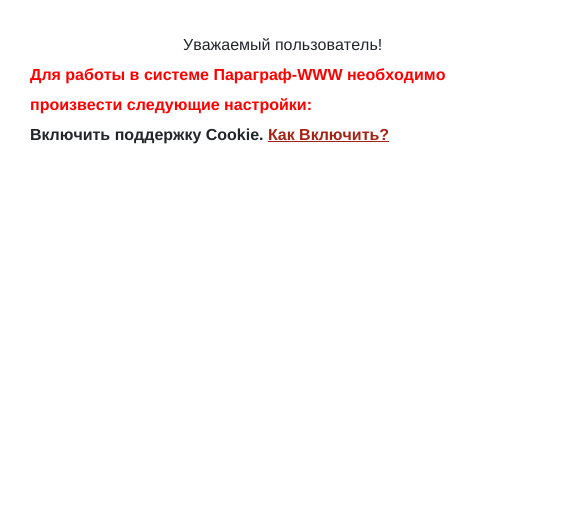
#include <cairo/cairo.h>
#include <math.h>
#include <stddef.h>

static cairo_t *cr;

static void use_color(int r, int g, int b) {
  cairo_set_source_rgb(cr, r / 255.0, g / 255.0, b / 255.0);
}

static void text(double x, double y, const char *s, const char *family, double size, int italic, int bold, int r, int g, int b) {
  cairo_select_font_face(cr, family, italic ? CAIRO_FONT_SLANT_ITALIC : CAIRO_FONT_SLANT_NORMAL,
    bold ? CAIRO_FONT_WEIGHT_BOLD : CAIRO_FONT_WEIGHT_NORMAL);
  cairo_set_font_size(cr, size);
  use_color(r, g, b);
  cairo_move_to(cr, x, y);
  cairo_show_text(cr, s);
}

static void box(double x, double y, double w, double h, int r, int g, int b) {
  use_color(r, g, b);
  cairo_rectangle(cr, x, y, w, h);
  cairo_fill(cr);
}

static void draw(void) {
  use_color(255, 255, 255);
  cairo_paint(cr);
  box(268, 141, 121, 1, 165, 35, 21);
  text(183, 50, "Уважаемый пользователь!", "Liberation Sans", 16, 0, 0, 33, 37, 41);
  text(30, 80, "Для работы в системе Параграф-WWW необходимо", "Liberation Sans", 16, 0, 1, 255, 0, 0);
  text(30, 110, "произвести следующие настройки:", "Liberation Sans", 16, 0, 1, 255, 0, 0);
  text(30, 140, "Включить поддержку Cookie.", "Liberation Sans", 16, 0, 1, 33, 37, 41);
  text(268, 140, "Как Включить?", "Liberation Sans", 16, 0, 1, 165, 35, 21);
}

int main(void) {
  cairo_surface_t *surface = cairo_image_surface_create(CAIRO_FORMAT_RGB24, 566, 532);
  cr = cairo_create(surface);
  cairo_font_options_t *options = cairo_font_options_create();
  cairo_font_options_set_hint_metrics(options, CAIRO_HINT_METRICS_OFF);
  cairo_font_options_set_hint_style(options, CAIRO_HINT_STYLE_NONE);
  cairo_set_font_options(cr, options);
  cairo_set_miter_limit(cr, 4);
  draw();
  cairo_surface_write_to_png(surface, "out.png");
  cairo_font_options_destroy(options);
  cairo_destroy(cr);
  cairo_surface_destroy(surface);
  return 0;
}
